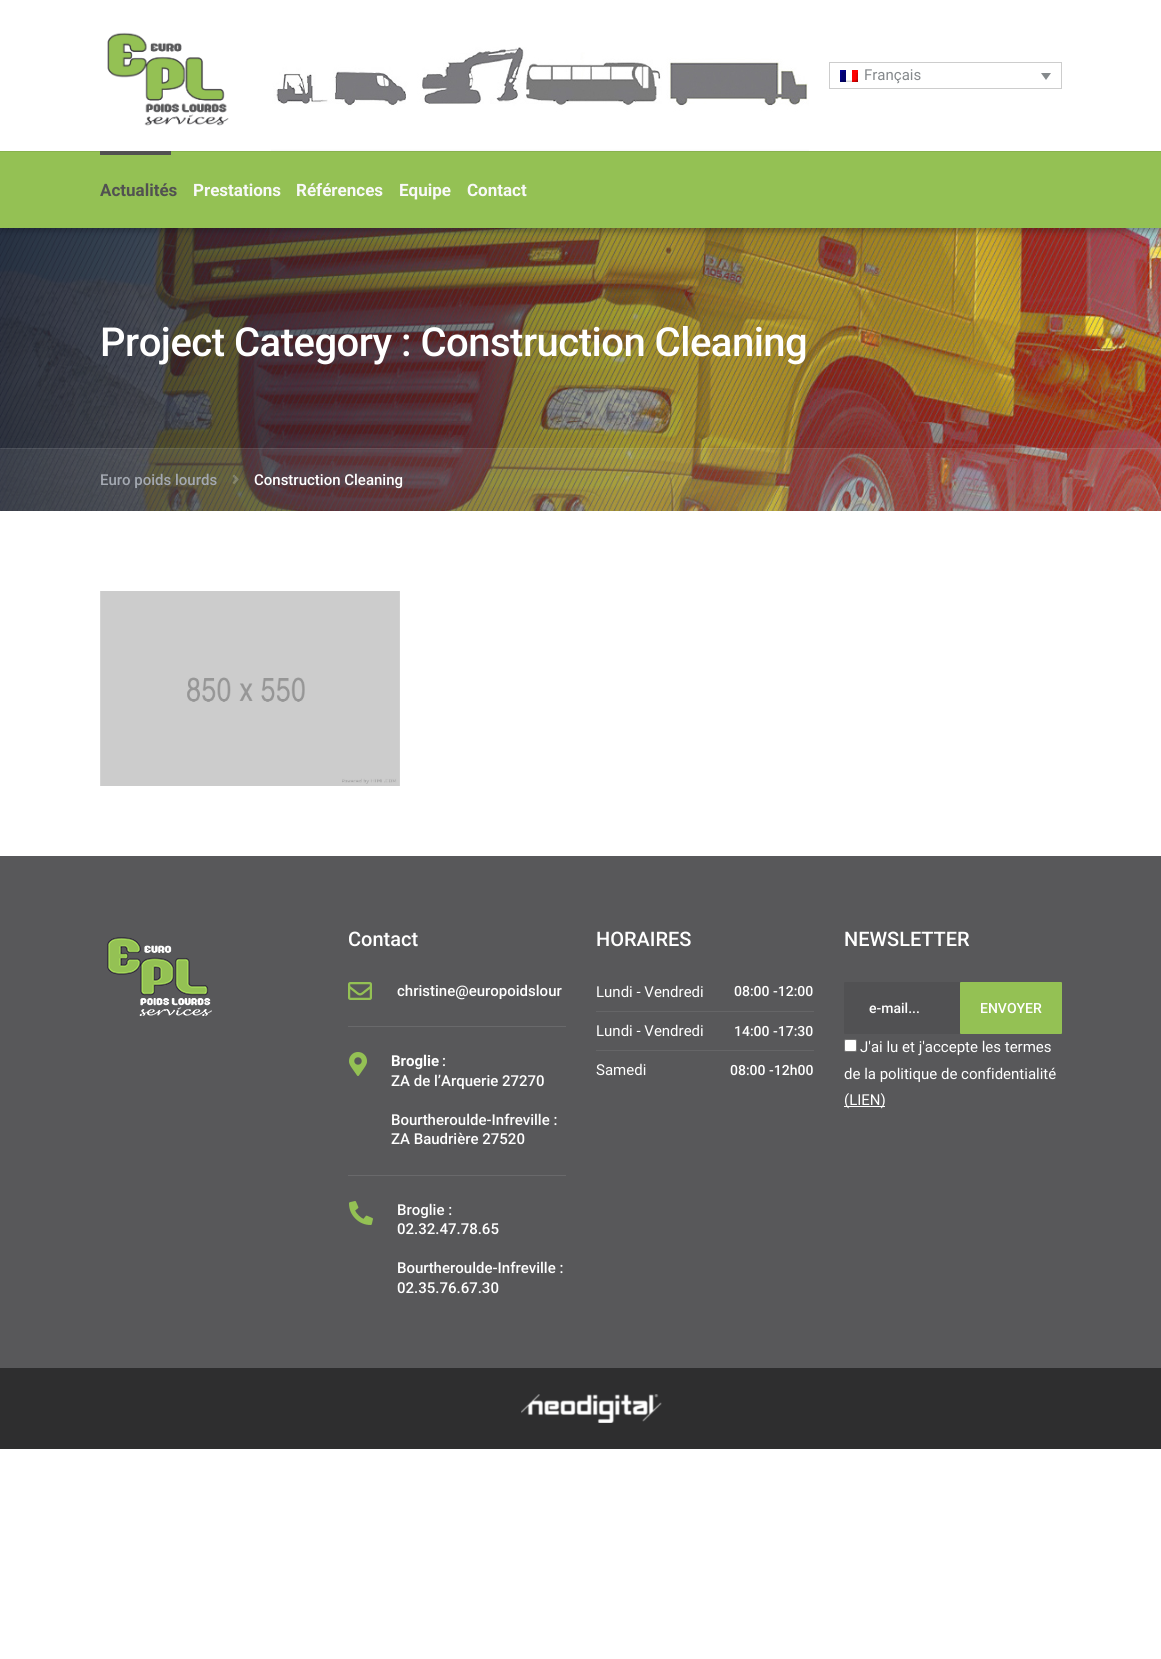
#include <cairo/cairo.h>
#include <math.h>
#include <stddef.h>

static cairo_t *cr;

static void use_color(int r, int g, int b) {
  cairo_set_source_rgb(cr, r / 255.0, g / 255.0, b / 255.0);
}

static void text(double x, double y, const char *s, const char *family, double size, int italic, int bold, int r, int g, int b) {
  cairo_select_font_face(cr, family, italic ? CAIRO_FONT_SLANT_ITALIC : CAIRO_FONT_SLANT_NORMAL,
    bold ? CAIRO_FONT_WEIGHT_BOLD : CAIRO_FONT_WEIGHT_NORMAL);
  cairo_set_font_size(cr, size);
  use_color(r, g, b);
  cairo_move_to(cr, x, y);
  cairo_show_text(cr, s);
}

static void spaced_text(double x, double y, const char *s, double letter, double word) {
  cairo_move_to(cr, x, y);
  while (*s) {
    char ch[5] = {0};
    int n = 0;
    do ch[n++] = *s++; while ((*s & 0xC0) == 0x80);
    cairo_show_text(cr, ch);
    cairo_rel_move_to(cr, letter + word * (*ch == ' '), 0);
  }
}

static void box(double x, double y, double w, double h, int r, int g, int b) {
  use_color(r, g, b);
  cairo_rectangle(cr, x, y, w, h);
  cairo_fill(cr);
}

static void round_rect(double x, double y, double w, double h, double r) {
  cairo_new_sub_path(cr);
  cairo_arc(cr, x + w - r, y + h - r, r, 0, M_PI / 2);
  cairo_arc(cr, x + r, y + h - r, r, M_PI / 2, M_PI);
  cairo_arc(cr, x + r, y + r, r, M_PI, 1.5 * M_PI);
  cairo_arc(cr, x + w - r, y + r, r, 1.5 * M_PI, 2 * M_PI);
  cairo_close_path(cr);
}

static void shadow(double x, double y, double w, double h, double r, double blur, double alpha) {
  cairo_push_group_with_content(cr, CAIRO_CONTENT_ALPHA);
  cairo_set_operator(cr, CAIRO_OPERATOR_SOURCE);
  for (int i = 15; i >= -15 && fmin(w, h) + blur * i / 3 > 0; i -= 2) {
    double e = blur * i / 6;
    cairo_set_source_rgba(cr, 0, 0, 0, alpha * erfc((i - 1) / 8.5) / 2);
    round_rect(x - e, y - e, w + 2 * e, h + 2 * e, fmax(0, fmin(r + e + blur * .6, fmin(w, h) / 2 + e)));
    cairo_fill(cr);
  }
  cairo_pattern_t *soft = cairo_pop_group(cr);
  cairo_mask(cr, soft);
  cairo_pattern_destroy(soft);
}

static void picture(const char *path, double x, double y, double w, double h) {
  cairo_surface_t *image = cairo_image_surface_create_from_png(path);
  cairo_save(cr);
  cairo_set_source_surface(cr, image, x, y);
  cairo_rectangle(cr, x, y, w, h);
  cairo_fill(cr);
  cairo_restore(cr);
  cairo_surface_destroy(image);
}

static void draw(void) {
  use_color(255, 255, 255);
  cairo_paint(cr);
  picture("img_04.png", 0, 228, 1161, 283);
  cairo_save(cr);
  cairo_rectangle(cr, 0, 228, 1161, 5);
  cairo_clip(cr);
  use_color(0, 0, 0);
  shadow(0, 2, 1161, 228, 0, 3, 0.1);
  cairo_restore(cr);
  picture("img_01.png", 107, 32, 122, 94);
  picture("img_02.png", 271, 47, 538, 104);
  cairo_rectangle(cr, 829.5, 62.5, 232, 26);
  use_color(205, 205, 205);
  cairo_set_line_width(cr, 1);
  cairo_stroke(cr);
  picture("img_03.png", 840, 70, 18, 12);
  use_color(133, 137, 140);
  cairo_new_path(cr);
  cairo_move_to(cr, 1041, 73);
  cairo_line_to(cr, 1051, 73);
  cairo_line_to(cr, 1046, 80);
  cairo_close_path(cr);
  cairo_fill(cr);
  box(0, 152, 1161, 76, 148, 193, 84);
  box(0, 151, 1161, 1, 136, 178, 77);
  box(100, 151, 71, 4, 81, 81, 81);
  cairo_set_source_rgba(cr, 1, 1, 1, 0.08);
  cairo_rectangle(cr, 0, 448, 1161, 63);
  cairo_fill(cr);
  cairo_rectangle(cr, 0, 448, 1161, 1);
  cairo_fill(cr);
  picture("img_05.png", 232, 474, 7, 10);
  picture("img_06.png", 100, 591, 300, 195);
  box(0, 856, 1161, 512, 88, 88, 90);
  picture("img_07.png", 107, 937, 105, 79);
  picture("img_08.png", 348, 982, 24, 18);
  box(348, 1026, 218, 1, 105, 105, 107);
  picture("img_09.png", 349, 1052, 18, 24);
  box(348, 1175, 218, 1, 105, 105, 107);
  picture("img_10.png", 349, 1201, 24, 24);
  box(596, 1011, 218, 1, 101, 101, 103);
  box(596, 1050, 218, 1, 101, 101, 103);
  use_color(81, 81, 83);
  round_rect(844, 982, 218, 52, 1);
  cairo_fill(cr);
  use_color(148, 193, 84);
  round_rect(960, 982, 102, 52, 1);
  cairo_fill(cr);
  use_color(255, 255, 255);
  round_rect(844.5, 1039.5, 12, 12, 1.5);
  cairo_fill_preserve(cr);
  use_color(118, 118, 118);
  cairo_stroke(cr);
  box(844, 1106, 41, 1, 255, 255, 255);
  box(0, 1368, 1161, 81, 46, 46, 47);
  picture("img_11.png", 521, 1394, 141, 29);
  text(864, 80, "Français", "Roboto", 15, 0, 0, 133, 137, 140);
  text(100, 196, "Actualités", "Roboto", 17, 0, 1, 81, 81, 81);
  text(193, 196, "Prestations", "Roboto", 17, 0, 1, 249, 249, 249);
  text(296, 196, "Références", "Roboto", 17, 0, 1, 249, 249, 249);
  text(399, 196, "Equipe", "Roboto", 17, 0, 1, 249, 249, 249);
  text(467, 196, "Contact", "Roboto", 17, 0, 1, 249, 249, 249);
  cairo_select_font_face(cr, "Roboto Medium", CAIRO_FONT_SLANT_NORMAL, CAIRO_FONT_WEIGHT_NORMAL);
  cairo_set_font_size(cr, 40);
  use_color(255, 255, 255);
  spaced_text(100, 356, "Project Category : Construction Cleaning", -0.5, 0);
  text(100, 485, "Euro poids lourds", "Roboto Medium", 15, 0, 0, 164, 169, 178);
  text(254, 485, "Construction Cleaning", "Roboto Medium", 15, 0, 0, 255, 255, 255);
  text(348, 946, "Contact", "Roboto Medium", 20, 0, 0, 255, 255, 255);
  text(397, 996, "christine@europoidslour", "Roboto Medium", 15, 0, 0, 255, 255, 255);
  text(391, 1066, "Broglie", "Roboto", 15, 0, 1, 255, 255, 255);
  text(442, 1066, ":", "Roboto Medium", 15, 0, 0, 255, 255, 255);
  text(391, 1086, "ZA de l’Arquerie 27270", "Roboto Medium", 15, 0, 0, 255, 255, 255);
  text(391, 1125, "Bourtheroulde-Infreville :", "Roboto Medium", 15, 0, 0, 255, 255, 255);
  text(391, 1144, "ZA Baudrière 27520", "Roboto Medium", 15, 0, 0, 255, 255, 255);
  text(397, 1215, "Broglie :", "Roboto Medium", 15, 0, 0, 255, 255, 255);
  text(397, 1234, "02.32.47.78.65", "Roboto Medium", 15, 0, 0, 255, 255, 255);
  text(397, 1273, "Bourtheroulde-Infreville :", "Roboto Medium", 15, 0, 0, 255, 255, 255);
  text(397, 1293, "02.35.76.67.30", "Roboto Medium", 15, 0, 0, 255, 255, 255);
  text(596, 946, "HORAIRES", "Roboto Medium", 20, 0, 0, 255, 255, 255);
  text(596, 997, "Lundi - Vendredi", "Roboto", 15, 0, 0, 255, 255, 255);
  text(734, 996, "08:00 -12:00", "Roboto Medium", 14, 0, 0, 255, 255, 255);
  text(596, 1036, "Lundi - Vendredi", "Roboto", 15, 0, 0, 255, 255, 255);
  text(734, 1036, "14:00 -17:30", "Roboto Medium", 14, 0, 0, 255, 255, 255);
  text(596, 1075, "Samedi", "Roboto", 15, 0, 0, 255, 255, 255);
  text(730, 1075, "08:00 -12h00", "Roboto Medium", 14, 0, 0, 255, 255, 255);
  text(844, 946, "NEWSLETTER", "Roboto Medium", 20, 0, 0, 255, 255, 255);
  text(869, 1013, "e-mail...", "Roboto Medium", 14, 0, 0, 255, 255, 255);
  text(980, 1013, "ENVOYER", "Roboto Medium", 14, 0, 0, 255, 255, 255);
  text(860, 1052, "J'ai lu et j'accepte les termes", "Roboto", 15, 0, 0, 255, 255, 255);
  text(844, 1079, "de la politique de confidentialité", "Roboto", 15, 0, 0, 255, 255, 255);
  text(844, 1105, "(LIEN)", "Roboto", 15, 0, 0, 255, 255, 255);
}

int main(void) {
  cairo_surface_t *surface = cairo_image_surface_create(CAIRO_FORMAT_RGB24, 1161, 1659);
  cr = cairo_create(surface);
  cairo_font_options_t *options = cairo_font_options_create();
  cairo_font_options_set_hint_metrics(options, CAIRO_HINT_METRICS_OFF);
  cairo_font_options_set_hint_style(options, CAIRO_HINT_STYLE_NONE);
  cairo_set_font_options(cr, options);
  cairo_set_miter_limit(cr, 4);
  draw();
  cairo_surface_write_to_png(surface, "out.png");
  cairo_font_options_destroy(options);
  cairo_destroy(cr);
  cairo_surface_destroy(surface);
  return 0;
}
